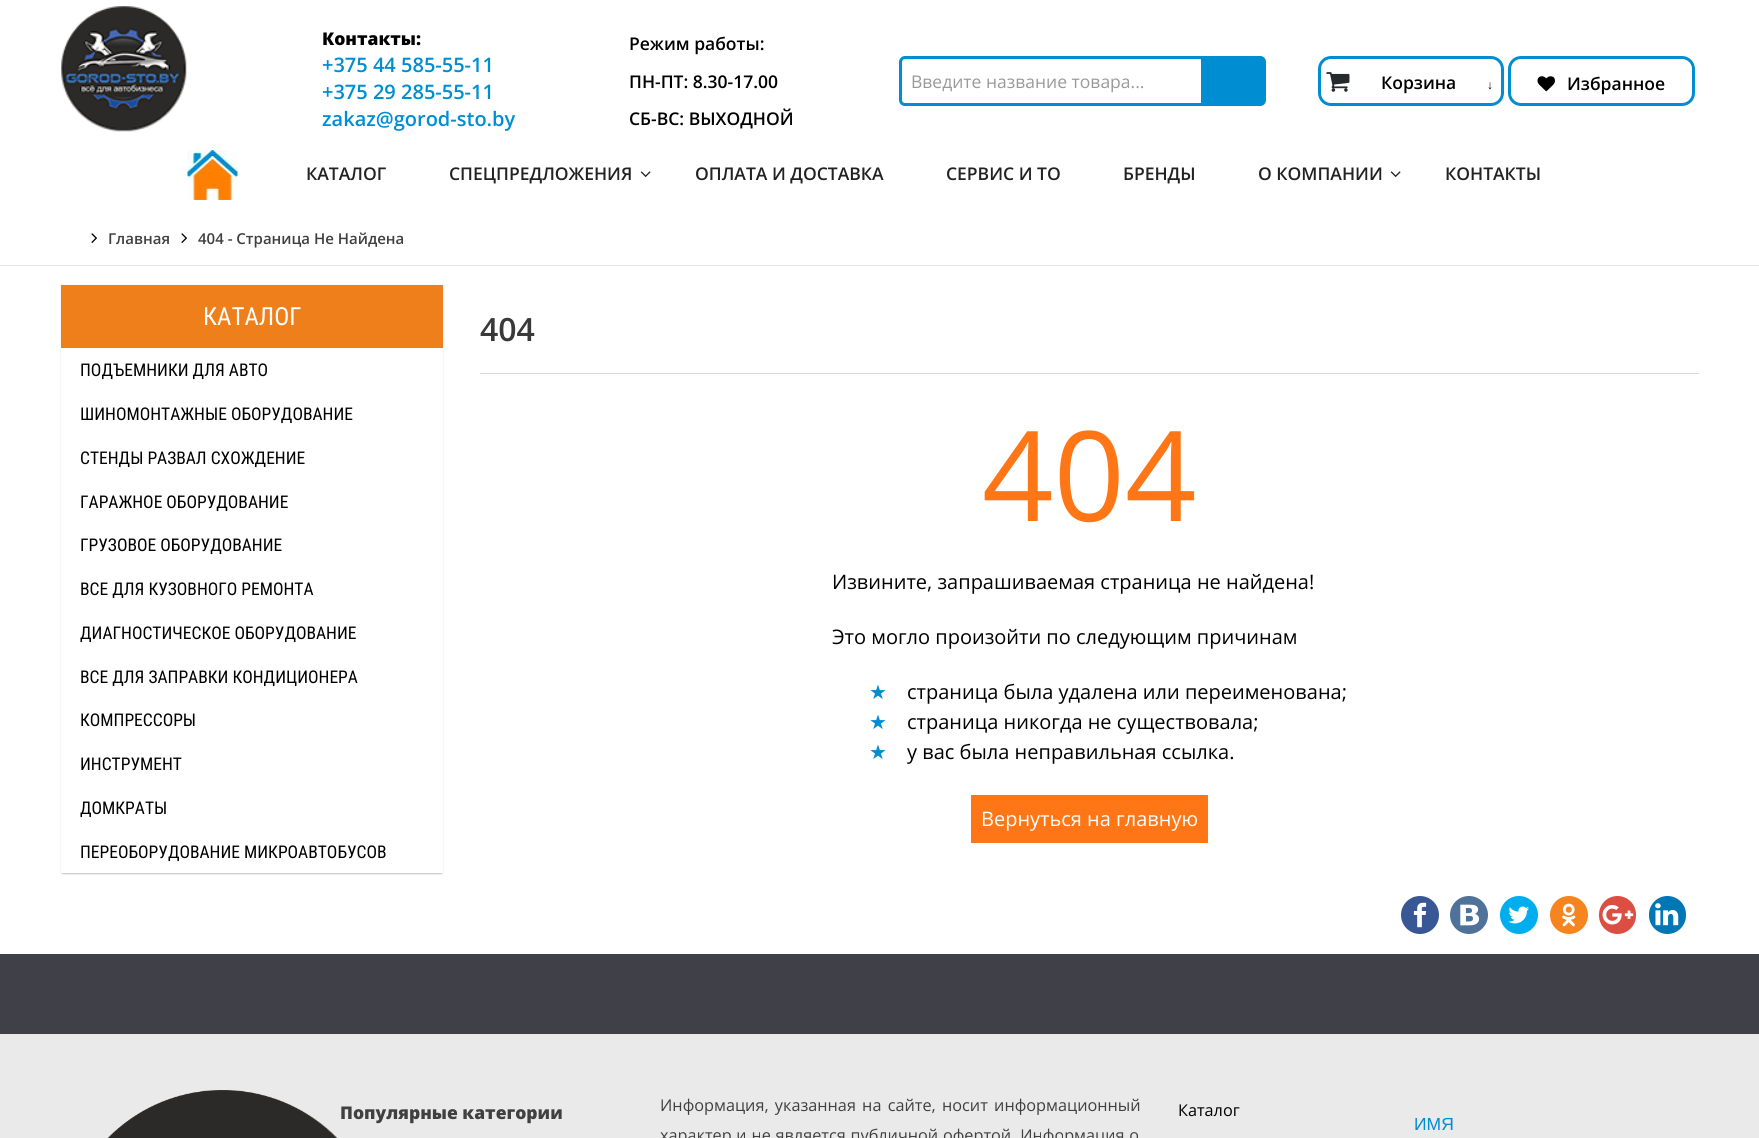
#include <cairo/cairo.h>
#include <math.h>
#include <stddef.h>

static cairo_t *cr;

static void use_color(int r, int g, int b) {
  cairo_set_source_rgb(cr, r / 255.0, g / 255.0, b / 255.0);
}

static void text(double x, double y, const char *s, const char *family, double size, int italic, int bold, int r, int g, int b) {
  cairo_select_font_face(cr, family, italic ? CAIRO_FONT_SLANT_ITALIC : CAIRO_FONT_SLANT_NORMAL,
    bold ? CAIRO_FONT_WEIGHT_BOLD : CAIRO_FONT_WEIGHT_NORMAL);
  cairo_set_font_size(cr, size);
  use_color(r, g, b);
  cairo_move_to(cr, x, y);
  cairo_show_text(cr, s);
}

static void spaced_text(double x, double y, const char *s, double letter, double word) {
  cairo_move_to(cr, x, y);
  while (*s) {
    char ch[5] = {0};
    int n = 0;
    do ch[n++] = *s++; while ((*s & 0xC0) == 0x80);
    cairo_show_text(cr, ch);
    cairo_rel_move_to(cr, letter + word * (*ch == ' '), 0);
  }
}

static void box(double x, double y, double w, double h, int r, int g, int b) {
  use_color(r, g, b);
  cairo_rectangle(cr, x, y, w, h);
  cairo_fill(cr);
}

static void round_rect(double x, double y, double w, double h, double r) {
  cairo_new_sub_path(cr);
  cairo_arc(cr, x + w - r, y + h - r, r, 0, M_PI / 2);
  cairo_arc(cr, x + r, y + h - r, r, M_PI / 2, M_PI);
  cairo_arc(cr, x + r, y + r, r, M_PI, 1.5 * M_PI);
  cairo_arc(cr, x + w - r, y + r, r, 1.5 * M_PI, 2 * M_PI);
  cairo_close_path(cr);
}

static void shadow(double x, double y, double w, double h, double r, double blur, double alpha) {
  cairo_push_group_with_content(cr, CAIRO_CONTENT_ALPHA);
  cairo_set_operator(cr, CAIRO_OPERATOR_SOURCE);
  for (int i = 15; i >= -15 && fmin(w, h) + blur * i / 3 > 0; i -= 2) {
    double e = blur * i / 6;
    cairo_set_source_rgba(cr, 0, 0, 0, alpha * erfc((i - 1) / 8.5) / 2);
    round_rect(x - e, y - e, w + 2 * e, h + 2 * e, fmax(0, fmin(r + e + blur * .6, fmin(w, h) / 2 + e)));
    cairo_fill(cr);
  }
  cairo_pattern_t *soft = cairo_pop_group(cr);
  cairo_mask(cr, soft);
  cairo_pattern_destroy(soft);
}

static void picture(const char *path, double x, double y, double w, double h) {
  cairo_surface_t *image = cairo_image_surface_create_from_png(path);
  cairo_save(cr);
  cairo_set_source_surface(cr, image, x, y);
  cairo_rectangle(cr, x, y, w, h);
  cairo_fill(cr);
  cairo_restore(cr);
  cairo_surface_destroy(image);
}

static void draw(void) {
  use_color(255, 255, 255);
  cairo_paint(cr);
  picture("img_01.png", 61, 6, 126, 126);
  use_color(236, 236, 236);
  cairo_new_path(cr);
  cairo_move_to(cr, 905, 60);
  cairo_line_to(cr, 1201, 60);
  cairo_line_to(cr, 1201, 59);
  cairo_line_to(cr, 905, 59);
  cairo_curve_to(cr, 903, 59, 901, 61, 901, 63);
  cairo_line_to(cr, 901, 64);
  cairo_curve_to(cr, 901, 62, 903, 60, 905, 60);
  cairo_close_path(cr);
  cairo_fill(cr);
  cairo_new_path(cr);
  cairo_move_to(cr, 905, 57.5);
  cairo_line_to(cr, 1202.5, 57.5);
  cairo_line_to(cr, 1202.5, 104.5);
  cairo_line_to(cr, 905, 104.5);
  cairo_curve_to(cr, 902.5, 104.5, 900.5, 102.5, 900.5, 100);
  cairo_line_to(cr, 900.5, 62);
  cairo_curve_to(cr, 900.5, 59.5, 902.5, 57.5, 905, 57.5);
  cairo_close_path(cr);
  use_color(0, 141, 210);
  cairo_set_line_width(cr, 3);
  cairo_stroke(cr);
  cairo_new_path(cr);
  cairo_move_to(cr, 1204, 56);
  cairo_line_to(cr, 1260, 56);
  cairo_curve_to(cr, 1263.5, 56, 1266, 58.5, 1266, 62);
  cairo_line_to(cr, 1266, 100);
  cairo_curve_to(cr, 1266, 103.5, 1263.5, 106, 1260, 106);
  cairo_line_to(cr, 1204, 106);
  cairo_close_path(cr);
  cairo_fill(cr);
  round_rect(1319.5, 57.5, 183, 47, 11.5);
  cairo_stroke(cr);
  picture("img_02.png", 1326, 72, 24, 20);
  round_rect(1509.5, 57.5, 184, 47, 11.5);
  cairo_stroke(cr);
  picture("img_03.png", 1537, 76, 18, 16);
  picture("img_04.png", 187, 150, 51, 50);
  picture("img_05.png", 640, 171, 11, 6);
  picture("img_05.png", 1390, 171, 11, 6);
  box(0, 265, 1759, 1, 229, 229, 229);
  picture("img_06.png", 91, 233, 6, 10);
  picture("img_06.png", 181, 233, 6, 10);
  use_color(0, 0, 0);
  shadow(61, 286, 382, 588, 0, 1, 0.1);
  shadow(63, 288, 378, 585, 0, 1, 0.4);
  box(61, 285, 382, 63, 239, 127, 26);
  box(61, 348, 382, 525, 255, 255, 255);
  box(480, 373, 1219, 1, 217, 218, 218);
  box(971, 795, 237, 48, 255, 118, 22);
  use_color(58, 87, 149);
  cairo_arc(cr, 1420, 915, 19, 0, 2 * M_PI);
  cairo_fill(cr);
  picture("img_07.png", 1413, 902, 14, 26);
  use_color(78, 114, 153);
  cairo_arc(cr, 1469, 915, 19, 0, 2 * M_PI);
  cairo_fill(cr);
  picture("img_08.png", 1460, 904, 20, 22);
  use_color(0, 174, 239);
  cairo_arc(cr, 1519, 915, 19, 0, 2 * M_PI);
  cairo_fill(cr);
  picture("img_09.png", 1508, 906, 21, 18);
  use_color(246, 133, 31);
  cairo_arc(cr, 1569, 915, 19, 0, 2 * M_PI);
  cairo_fill(cr);
  picture("img_10.png", 1562, 903, 14, 24);
  use_color(220, 78, 65);
  round_rect(1599, 896, 37, 38, 18.5);
  cairo_fill(cr);
  picture("img_11.png", 1602, 905, 32, 20);
  use_color(0, 119, 181);
  round_rect(1649, 896, 37, 38, 18.5);
  cairo_fill(cr);
  picture("img_12.png", 1655, 903, 24, 23);
  box(0, 954, 1759, 80, 64, 64, 72);
  box(0, 1034, 1759, 104, 234, 234, 234);
  picture("img_13.png", 108, 1090, 229, 48);
  text(322, 45, "Контакты:", "Open Sans ExtraBold", 17.5, 0, 0, 0, 0, 0);
  text(322, 72, "+375 44 585-55-11", "Open Sans SemiBold", 20, 0, 0, 0, 141, 210);
  text(322, 99, "+375 29 285-55-11", "Open Sans SemiBold", 20, 0, 0, 0, 141, 210);
  text(322, 126, "zakaz@gorod-sto.by", "Open Sans SemiBold", 20, 0, 0, 0, 141, 210);
  text(629, 50, "Режим работы:", "Open Sans SemiBold", 17.5, 0, 0, 0, 0, 0);
  text(629, 88, "ПН-ПТ: 8.30-17.00", "Open Sans SemiBold", 17.5, 0, 0, 0, 0, 0);
  text(629, 125, "СБ-ВС: ВЫХОДНОЙ", "Open Sans SemiBold", 17.5, 0, 0, 0, 0, 0);
  text(911, 88, "Введите название товара...", "Open Sans", 17.5, 0, 0, 153, 153, 153);
  text(1381, 89, "Корзина", "Open Sans SemiBold", 17.5, 0, 0, 0, 0, 0);
  text(1487, 89, "↓", "Liberation Sans", 12, 1, 1, 0, 0, 0);
  text(1567, 90, "Избранное", "Open Sans SemiBold", 17.5, 0, 0, 0, 0, 0);
  text(306, 180, "КАТАЛОГ", "Open Sans SemiBold", 17.5, 0, 0, 34, 34, 34);
  text(449, 180, "СПЕЦПРЕДЛОЖЕНИЯ", "Open Sans SemiBold", 17.5, 0, 0, 34, 34, 34);
  text(695, 180, "ОПЛАТА И ДОСТАВКА", "Open Sans SemiBold", 17.5, 0, 0, 34, 34, 34);
  text(946, 180, "СЕРВИС И ТО", "Open Sans SemiBold", 17.5, 0, 0, 34, 34, 34);
  text(1123, 180, "БРЕНДЫ", "Open Sans SemiBold", 17.5, 0, 0, 34, 34, 34);
  text(1258, 180, "О КОМПАНИИ", "Open Sans SemiBold", 17.5, 0, 0, 34, 34, 34);
  text(1445, 180, "КОНТАКТЫ", "Open Sans SemiBold", 17.5, 0, 0, 34, 34, 34);
  text(108, 244, "Главная", "Open Sans SemiBold", 15, 0, 0, 64, 64, 64);
  text(198, 244, "404 - Страница Не Найдена", "Open Sans SemiBold", 15, 0, 0, 64, 64, 64);
  text(203, 325, "КАТАЛОГ", "Roboto Condensed", 25, 0, 0, 255, 255, 255);
  text(80, 376, "ПОДЪЕМНИКИ ДЛЯ АВТО", "Roboto Condensed", 17.5, 0, 0, 0, 0, 0);
  text(80, 420, "ШИНОМОНТАЖНЫЕ ОБОРУДОВАНИЕ", "Roboto Condensed", 17.5, 0, 0, 0, 0, 0);
  text(80, 464, "СТЕНДЫ РАЗВАЛ СХОЖДЕНИЕ", "Roboto Condensed", 17.5, 0, 0, 0, 0, 0);
  text(80, 508, "ГАРАЖНОЕ ОБОРУДОВАНИЕ", "Roboto Condensed", 17.5, 0, 0, 0, 0, 0);
  text(80, 551, "ГРУЗОВОЕ ОБОРУДОВАНИЕ", "Roboto Condensed", 17.5, 0, 0, 0, 0, 0);
  text(80, 595, "ВСЕ ДЛЯ КУЗОВНОГО РЕМОНТА", "Roboto Condensed", 17.5, 0, 0, 0, 0, 0);
  text(80, 639, "ДИАГНОСТИЧЕСКОЕ ОБОРУДОВАНИЕ", "Roboto Condensed", 17.5, 0, 0, 0, 0, 0);
  text(80, 683, "ВСЕ ДЛЯ ЗАПРАВКИ КОНДИЦИОНЕРА", "Roboto Condensed", 17.5, 0, 0, 0, 0, 0);
  text(80, 726, "КОМПРЕССОРЫ", "Roboto Condensed", 17.5, 0, 0, 0, 0, 0);
  text(80, 770, "ИНСТРУМЕНТ", "Roboto Condensed", 17.5, 0, 0, 0, 0, 0);
  text(80, 814, "ДОМКРАТЫ", "Roboto Condensed", 17.5, 0, 0, 0, 0, 0);
  text(80, 858, "ПЕРЕОБОРУДОВАНИЕ МИКРОАВТОБУСОВ", "Roboto Condensed", 17.5, 0, 0, 0, 0, 0);
  text(480, 341, "404", "Open Sans SemiBold", 32, 0, 0, 57, 57, 57);
  text(982, 521, "404", "Open Sans", 125, 0, 0, 255, 118, 22);
  text(832, 589, "Извините, запрашиваемая страница не найдена!", "Open Sans", 20, 0, 0, 0, 0, 0);
  text(832, 644, "Это могло произойти по следующим причинам", "Open Sans", 20, 0, 0, 0, 0, 0);
  text(869, 699, "★", "DejaVu Sans", 20, 0, 0, 0, 141, 210);
  text(907, 699, "страница была удалена или переименована;", "Open Sans", 20, 0, 0, 0, 0, 0);
  text(869, 729, "★", "DejaVu Sans", 20, 0, 0, 0, 141, 210);
  text(907, 729, "страница никогда не существовала;", "Open Sans", 20, 0, 0, 0, 0, 0);
  text(869, 759, "★", "DejaVu Sans", 20, 0, 0, 0, 141, 210);
  text(907, 759, "у вас была неправильная ссылка.", "Open Sans", 20, 0, 0, 0, 0, 0);
  text(981, 826, "Вернуться на главную", "Open Sans", 20, 0, 0, 255, 255, 255);
  text(340, 1119, "Популярные категории", "Open Sans ExtraBold", 17.5, 0, 0, 64, 64, 64);
  cairo_select_font_face(cr, "Open Sans", CAIRO_FONT_SLANT_NORMAL, CAIRO_FONT_WEIGHT_NORMAL);
  cairo_set_font_size(cr, 16.25);
  spaced_text(660, 1111, "Информация, указанная на сайте, носит информационный", 0, 2);
  spaced_text(660, 1141, "характер и не является публичной офертой. Информация о", 0, 0.5);
  text(1178, 1116, "Каталог", "Open Sans", 16.25, 0, 0, 0, 0, 0);
  text(1414, 1130, "ИМЯ", "Liberation Sans", 17.5, 0, 0, 0, 141, 210);
}

int main(void) {
  cairo_surface_t *surface = cairo_image_surface_create(CAIRO_FORMAT_RGB24, 1759, 1138);
  cr = cairo_create(surface);
  cairo_font_options_t *options = cairo_font_options_create();
  cairo_font_options_set_hint_metrics(options, CAIRO_HINT_METRICS_OFF);
  cairo_font_options_set_hint_style(options, CAIRO_HINT_STYLE_NONE);
  cairo_set_font_options(cr, options);
  cairo_set_miter_limit(cr, 4);
  draw();
  cairo_surface_write_to_png(surface, "out.png");
  cairo_font_options_destroy(options);
  cairo_destroy(cr);
  cairo_surface_destroy(surface);
  return 0;
}
